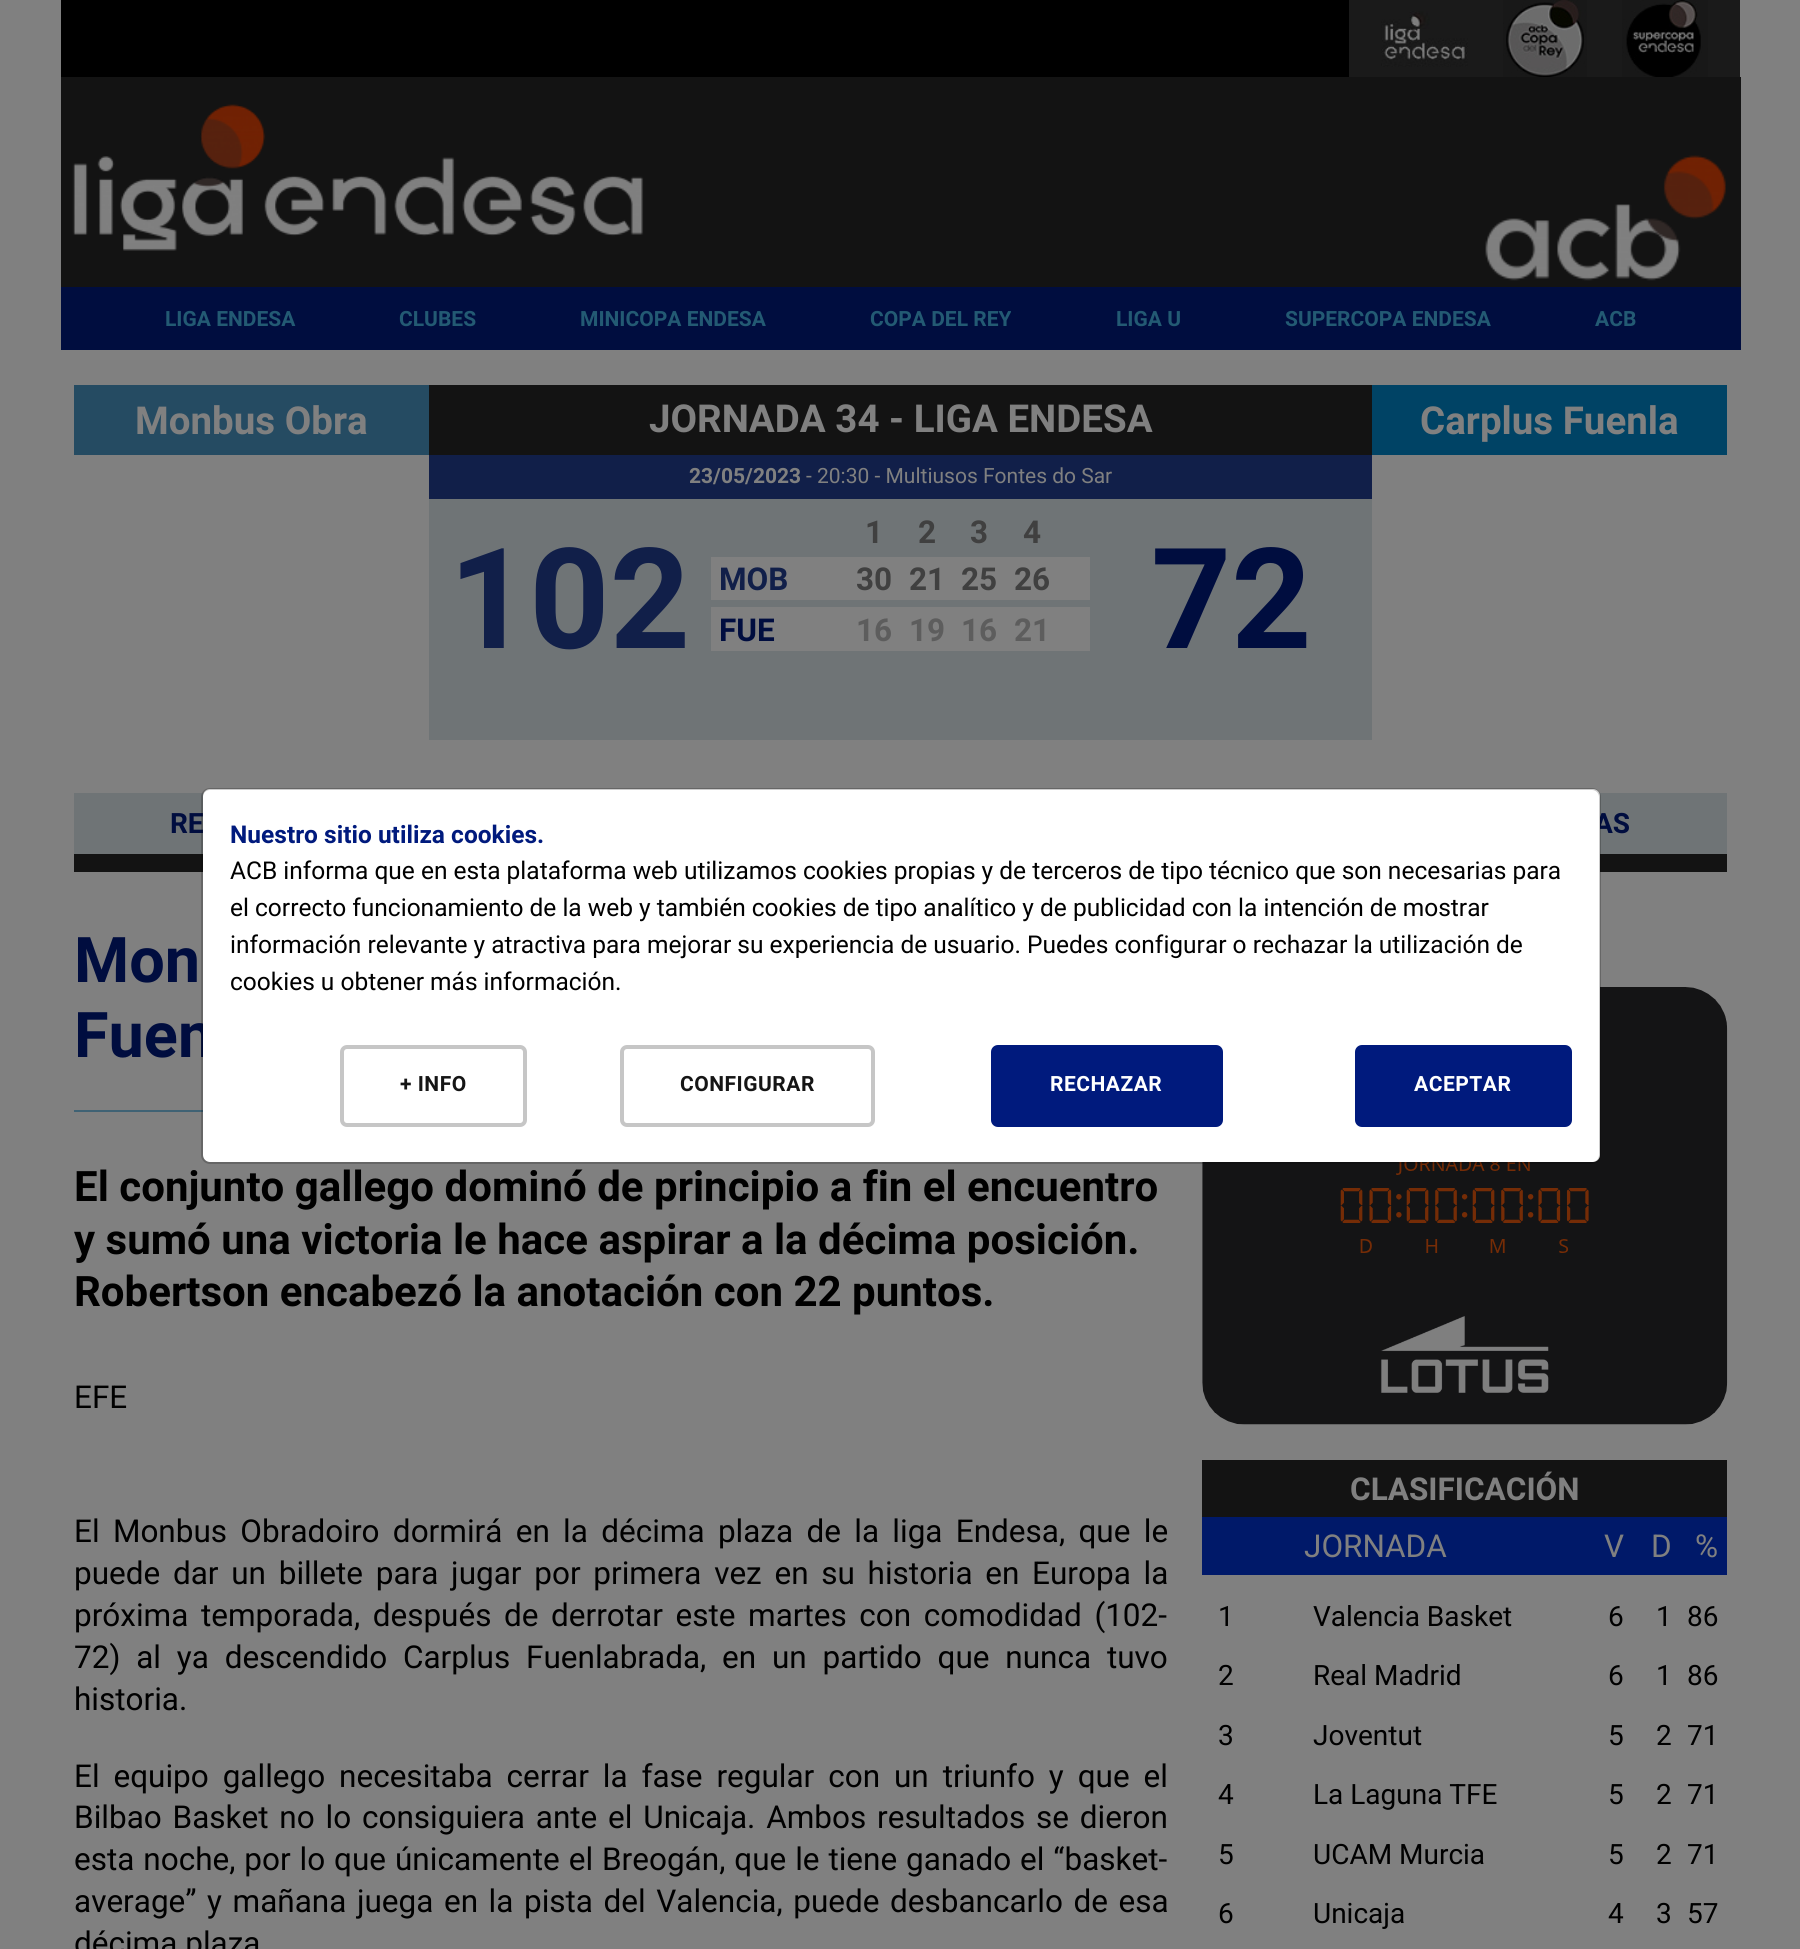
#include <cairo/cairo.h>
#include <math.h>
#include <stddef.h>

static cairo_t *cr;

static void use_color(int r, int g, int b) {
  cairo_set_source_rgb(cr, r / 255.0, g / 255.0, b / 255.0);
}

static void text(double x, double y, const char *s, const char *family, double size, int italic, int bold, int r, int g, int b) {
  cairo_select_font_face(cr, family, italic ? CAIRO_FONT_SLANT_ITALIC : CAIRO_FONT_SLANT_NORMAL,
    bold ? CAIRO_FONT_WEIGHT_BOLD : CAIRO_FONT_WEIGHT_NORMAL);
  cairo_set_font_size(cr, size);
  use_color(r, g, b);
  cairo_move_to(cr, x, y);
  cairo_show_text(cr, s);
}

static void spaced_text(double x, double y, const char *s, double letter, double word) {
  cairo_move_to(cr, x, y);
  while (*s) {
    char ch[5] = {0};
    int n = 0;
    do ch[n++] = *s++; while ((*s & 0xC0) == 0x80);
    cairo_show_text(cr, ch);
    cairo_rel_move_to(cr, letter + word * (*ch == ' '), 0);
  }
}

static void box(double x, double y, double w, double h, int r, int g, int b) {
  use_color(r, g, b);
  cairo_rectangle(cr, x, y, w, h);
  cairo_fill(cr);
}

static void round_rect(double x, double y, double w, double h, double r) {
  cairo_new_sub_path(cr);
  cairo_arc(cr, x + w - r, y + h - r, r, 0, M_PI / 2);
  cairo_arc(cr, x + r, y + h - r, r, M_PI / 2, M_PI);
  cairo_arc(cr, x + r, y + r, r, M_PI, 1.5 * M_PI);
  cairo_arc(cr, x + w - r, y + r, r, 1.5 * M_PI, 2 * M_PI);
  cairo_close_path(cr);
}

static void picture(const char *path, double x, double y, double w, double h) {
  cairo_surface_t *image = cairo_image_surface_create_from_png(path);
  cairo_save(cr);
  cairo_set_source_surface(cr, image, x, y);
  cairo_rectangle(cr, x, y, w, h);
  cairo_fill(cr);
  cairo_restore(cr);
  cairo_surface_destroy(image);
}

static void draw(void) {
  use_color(128, 128, 128);
  cairo_paint(cr);
  box(61, 0, 1288, 77, 0, 0, 0);
  box(1349, 0, 391, 77, 26, 26, 26);
  picture("img_01.png", 1381, 11, 87, 56);
  picture("img_02.png", 1503, 0, 84, 77);
  picture("img_03.png", 1622, 0, 86, 77);
  box(61, 77, 1680, 210, 19, 19, 19);
  picture("img_04.png", 72, 104, 572, 147);
  picture("img_05.png", 1485, 155, 241, 126);
  box(61, 287, 1680, 63, 0, 13, 63);
  box(74, 385, 355, 70, 37, 75, 98);
  box(429, 385, 943, 70, 19, 19, 19);
  box(1372, 385, 355, 70, 0, 67, 101);
  box(429, 455, 943, 44, 17, 31, 73);
  box(429, 499, 943, 241, 111, 116, 118);
  box(711, 557, 379, 43, 128, 128, 128);
  box(711, 607, 379, 44, 128, 128, 128);
  box(74, 793, 1653, 61, 111, 116, 118);
  box(74, 854, 1653, 18, 19, 19, 19);
  box(74, 1110, 129, 2, 63, 98, 116);
  picture("img_06.png", 1202, 987, 526, 438);
  box(1202, 1460, 525, 57, 19, 19, 19);
  box(1202, 1517, 525, 58, 0, 25, 105);
  text(165, 326, "LIGA ENDESA", "Roboto", 21, 0, 1, 35, 90, 115);
  text(399, 326, "CLUBES", "Roboto", 21, 0, 1, 35, 90, 115);
  text(580, 326, "MINICOPA ENDESA", "Roboto", 21, 0, 1, 35, 90, 115);
  text(870, 326, "COPA DEL REY", "Roboto", 21, 0, 1, 35, 90, 115);
  text(1116, 326, "LIGA U", "Roboto", 21, 0, 1, 35, 90, 115);
  text(1285, 326, "SUPERCOPA ENDESA", "Roboto", 21, 0, 1, 35, 90, 115);
  text(1595, 326, "ACB", "Roboto", 21, 0, 1, 35, 90, 115);
  text(135, 434, "Monbus Obra", "Roboto", 38.5, 0, 1, 128, 128, 128);
  text(649, 432, "JORNADA 34 - LIGA ENDESA", "Roboto", 38.5, 0, 1, 128, 128, 128);
  text(1420, 434, "Carplus Fuenla", "Roboto", 38.5, 0, 1, 128, 128, 128);
  text(689, 483, "23/05/2023", "Roboto", 21, 0, 1, 128, 128, 128);
  text(806, 483, "- 20:30 - Multiusos Fontes do Sar", "Roboto", 21, 0, 0, 128, 128, 128);
  text(449, 648, "102", "Roboto", 140, 0, 1, 17, 31, 73);
  text(865, 543, "1", "Roboto", 31.5, 0, 1, 64, 64, 64);
  text(918, 543, "2", "Roboto", 31.5, 0, 1, 64, 64, 64);
  text(970, 543, "3", "Roboto", 31.5, 0, 1, 64, 64, 64);
  text(1023, 543, "4", "Roboto", 31.5, 0, 1, 64, 64, 64);
  text(719, 590, "MOB", "Roboto", 31.5, 0, 1, 17, 31, 73);
  text(856, 590, "30", "Roboto", 31.5, 0, 1, 64, 64, 64);
  text(909, 590, "21", "Roboto", 31.5, 0, 1, 64, 64, 64);
  text(961, 590, "25", "Roboto", 31.5, 0, 1, 64, 64, 64);
  text(1014, 590, "26", "Roboto", 31.5, 0, 1, 64, 64, 64);
  text(719, 641, "FUE", "Roboto", 31.5, 0, 1, 0, 13, 63);
  text(856, 641, "16", "Roboto", 31.5, 0, 1, 93, 93, 93);
  text(909, 641, "19", "Roboto", 31.5, 0, 1, 93, 93, 93);
  text(961, 641, "16", "Roboto", 31.5, 0, 1, 93, 93, 93);
  text(1014, 641, "21", "Roboto", 31.5, 0, 1, 93, 93, 93);
  text(1151, 648, "72", "Roboto", 140, 0, 1, 0, 13, 63);
  text(170, 833, "RE", "Roboto", 28, 0, 1, 0, 13, 63);
  text(1594, 833, "AS", "Roboto", 28, 0, 1, 0, 13, 63);
  text(74, 982, "Mon", "Roboto", 63, 0, 1, 0, 13, 63);
  text(74, 1057, "Fuen", "Roboto", 63, 0, 1, 0, 13, 63);
  text(74, 1201, "El conjunto gallego dominó de principio a fin el encuentro", "Roboto", 42, 0, 1, 0, 0, 0);
  text(74, 1254, "y sumó una victoria le hace aspirar a la décima posición.", "Roboto", 42, 0, 1, 0, 0, 0);
  text(74, 1306, "Robertson encabezó la anotación con 22 puntos.", "Roboto", 42, 0, 1, 0, 0, 0);
  text(74, 1408, "EFE", "Roboto", 31.5, 0, 0, 0, 0, 0);
  spaced_text(74, 1542, "El Monbus Obradoiro dormirá en la décima plaza de la liga Endesa, que le", 0, 5.5);
  spaced_text(74, 1584, "puede dar un billete para jugar por primera vez en su historia en Europa la", 0, 4.9);
  spaced_text(74, 1626, "próxima temporada, después de derrotar este martes con comodidad (102-", 0, 4.75);
  spaced_text(74, 1668, "72) al ya descendido Carplus Fuenlabrada, en un partido que nunca tuvo", 0, 8);
  text(74, 1710, "historia.", "Roboto", 31.5, 0, 0, 0, 0, 0);
  spaced_text(74, 1787, "El equipo gallego necesitaba cerrar la fase regular con un triunfo y que el", 0, 6.1);
  spaced_text(74, 1828, "Bilbao Basket no lo consiguiera ante el Unicaja. Ambos resultados se dieron", 0, 3);
  spaced_text(74, 1870, "esta noche, por lo que únicamente el Breogán, que le tiene ganado el “basket-", 0, 1.1);
  spaced_text(74, 1912, "average” y mañana juega en la pista del Valencia, puede desbancarlo de esa", 0, 2.75);
  text(74, 1954, "décima plaza", "Roboto", 31.5, 0, 0, 0, 0, 0);
  text(1350, 1500, "CLASIFICACIÓN", "Roboto", 31.5, 0, 1, 128, 128, 128);
  text(1304, 1557, "JORNADA", "Roboto", 31.5, 0, 0, 128, 128, 128);
  text(1604, 1557, "V", "Roboto", 31.5, 0, 0, 128, 128, 128);
  text(1651, 1557, "D", "Roboto", 31.5, 0, 0, 128, 128, 128);
  text(1695, 1557, "%", "Roboto", 31.5, 0, 0, 128, 128, 128);
  text(1218, 1626, "1", "Roboto", 28, 0, 0, 0, 0, 0);
  text(1313, 1626, "Valencia Basket", "Roboto", 28, 0, 0, 0, 0, 0);
  text(1608, 1626, "6", "Roboto", 28, 0, 0, 0, 0, 0);
  text(1656, 1626, "1", "Roboto", 28, 0, 0, 0, 0, 0);
  text(1687, 1626, "86", "Roboto", 28, 0, 0, 0, 0, 0);
  text(1218, 1685, "2", "Roboto", 28, 0, 0, 0, 0, 0);
  text(1313, 1685, "Real Madrid", "Roboto", 28, 0, 0, 0, 0, 0);
  text(1608, 1685, "6", "Roboto", 28, 0, 0, 0, 0, 0);
  text(1656, 1685, "1", "Roboto", 28, 0, 0, 0, 0, 0);
  text(1687, 1685, "86", "Roboto", 28, 0, 0, 0, 0, 0);
  text(1218, 1745, "3", "Roboto", 28, 0, 0, 0, 0, 0);
  text(1313, 1745, "Joventut", "Roboto", 28, 0, 0, 0, 0, 0);
  text(1608, 1745, "5", "Roboto", 28, 0, 0, 0, 0, 0);
  text(1656, 1745, "2", "Roboto", 28, 0, 0, 0, 0, 0);
  text(1687, 1745, "71", "Roboto", 28, 0, 0, 0, 0, 0);
  text(1218, 1804, "4", "Roboto", 28, 0, 0, 0, 0, 0);
  text(1313, 1804, "La Laguna TFE", "Roboto", 28, 0, 0, 0, 0, 0);
  text(1608, 1804, "5", "Roboto", 28, 0, 0, 0, 0, 0);
  text(1656, 1804, "2", "Roboto", 28, 0, 0, 0, 0, 0);
  text(1687, 1804, "71", "Roboto", 28, 0, 0, 0, 0, 0);
  text(1218, 1864, "5", "Roboto", 28, 0, 0, 0, 0, 0);
  text(1313, 1864, "UCAM Murcia", "Roboto", 28, 0, 0, 0, 0, 0);
  text(1608, 1864, "5", "Roboto", 28, 0, 0, 0, 0, 0);
  text(1656, 1864, "2", "Roboto", 28, 0, 0, 0, 0, 0);
  text(1687, 1864, "71", "Roboto", 28, 0, 0, 0, 0, 0);
  text(1218, 1923, "6", "Roboto", 28, 0, 0, 0, 0, 0);
  text(1313, 1923, "Unicaja", "Roboto", 28, 0, 0, 0, 0, 0);
  text(1608, 1923, "4", "Roboto", 28, 0, 0, 0, 0, 0);
  text(1656, 1923, "3", "Roboto", 28, 0, 0, 0, 0, 0);
  text(1687, 1923, "57", "Roboto", 28, 0, 0, 0, 0, 0);
  use_color(255, 255, 255);
  round_rect(203, 789, 1397, 373, 7);
  cairo_fill(cr);
  round_rect(202, 789, 1398, 374, 8);
  cairo_set_source_rgba(cr, 0, 0, 0, 0.2);
  cairo_stroke(cr);
  text(230, 843, "Nuestro sitio utiliza cookies.", "Roboto", 24.5, 0, 1, 0, 26, 125);
  text(230, 879, "ACB informa que en esta plataforma web utilizamos cookies propias y de terceros de tipo técnico que son necesarias para", "Roboto", 24.5, 0, 0, 0, 0, 0);
  text(230, 916, "el correcto funcionamiento de la web y también cookies de tipo analítico y de publicidad con la intención de mostrar", "Roboto", 24.5, 0, 0, 0, 0, 0);
  text(230, 953, "información relevante y atractiva para mejorar su experiencia de usuario. Puedes configurar o rechazar la utilización de", "Roboto", 24.5, 0, 0, 0, 0, 0);
  text(230, 990, "cookies u obtener más información.", "Roboto", 24.5, 0, 0, 0, 0, 0);
  round_rect(342, 1047, 183, 78, 5);
  use_color(198, 198, 198);
  cairo_set_line_width(cr, 4);
  cairo_stroke(cr);
  cairo_select_font_face(cr, "Roboto", CAIRO_FONT_SLANT_NORMAL, CAIRO_FONT_WEIGHT_BOLD);
  cairo_set_font_size(cr, 21);
  use_color(21, 21, 21);
  spaced_text(400, 1091, "+ INFO", 0.5, 0);
  round_rect(622, 1047, 251, 78, 5);
  use_color(198, 198, 198);
  cairo_stroke(cr);
  use_color(21, 21, 21);
  spaced_text(680, 1091, "CONFIGURAR", 0.5, 0);
  use_color(0, 26, 125);
  round_rect(993, 1047, 228, 78, 5);
  cairo_fill_preserve(cr);
  cairo_stroke(cr);
  use_color(255, 255, 255);
  spaced_text(1050, 1091, "RECHAZAR", 0.5, 0);
  use_color(0, 26, 125);
  round_rect(1357, 1047, 213, 78, 5);
  cairo_fill_preserve(cr);
  cairo_stroke(cr);
  use_color(255, 255, 255);
  spaced_text(1414, 1091, "ACEPTAR", 0.5, 0);
}

int main(void) {
  cairo_surface_t *surface = cairo_image_surface_create(CAIRO_FORMAT_RGB24, 1800, 1949);
  cr = cairo_create(surface);
  cairo_font_options_t *options = cairo_font_options_create();
  cairo_font_options_set_hint_metrics(options, CAIRO_HINT_METRICS_OFF);
  cairo_font_options_set_hint_style(options, CAIRO_HINT_STYLE_NONE);
  cairo_set_font_options(cr, options);
  cairo_set_miter_limit(cr, 4);
  draw();
  cairo_surface_write_to_png(surface, "out.png");
  cairo_font_options_destroy(options);
  cairo_destroy(cr);
  cairo_surface_destroy(surface);
  return 0;
}
